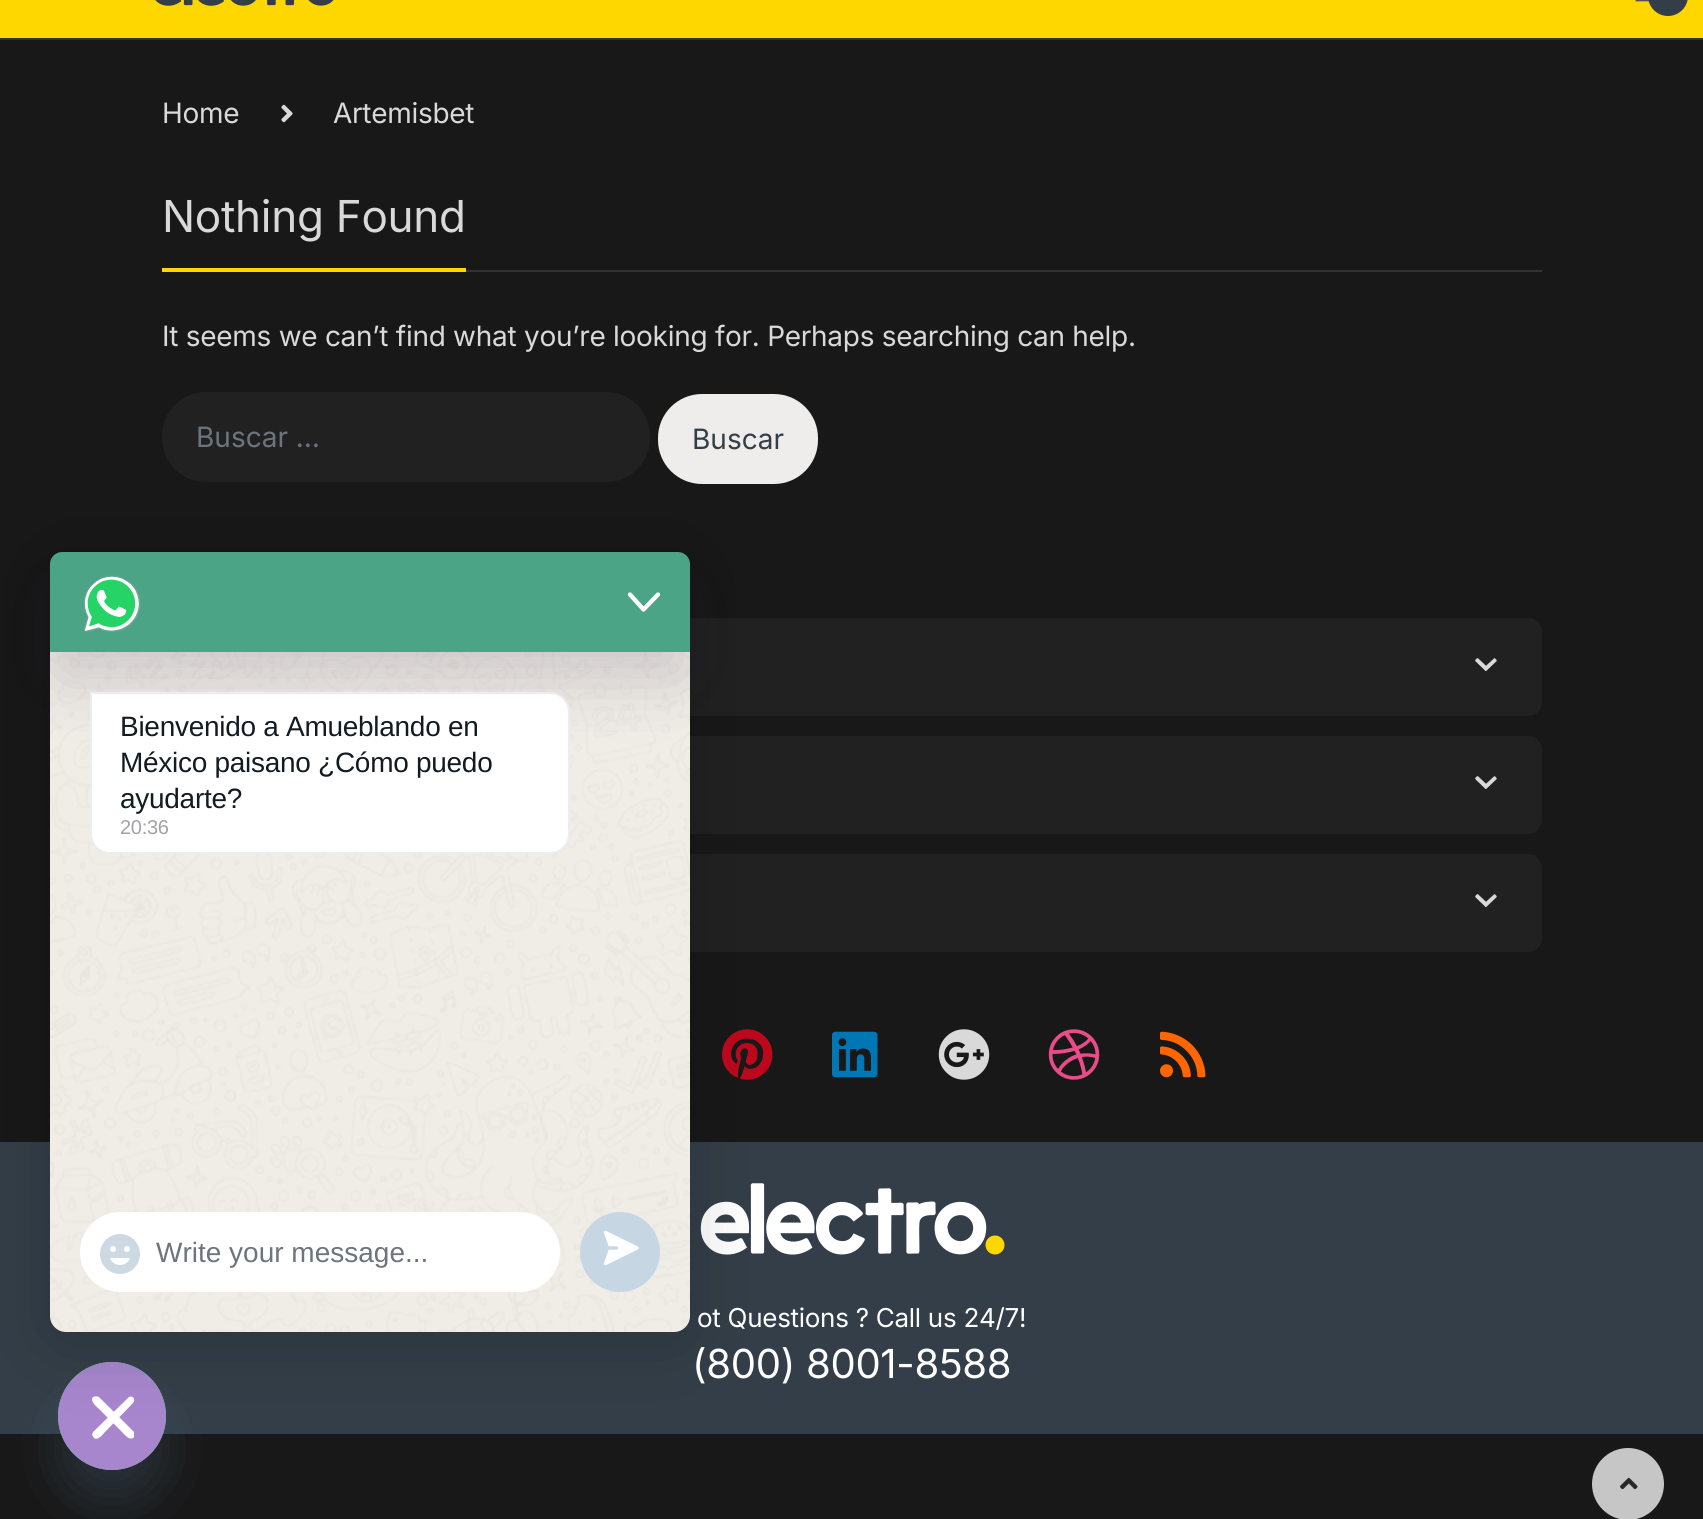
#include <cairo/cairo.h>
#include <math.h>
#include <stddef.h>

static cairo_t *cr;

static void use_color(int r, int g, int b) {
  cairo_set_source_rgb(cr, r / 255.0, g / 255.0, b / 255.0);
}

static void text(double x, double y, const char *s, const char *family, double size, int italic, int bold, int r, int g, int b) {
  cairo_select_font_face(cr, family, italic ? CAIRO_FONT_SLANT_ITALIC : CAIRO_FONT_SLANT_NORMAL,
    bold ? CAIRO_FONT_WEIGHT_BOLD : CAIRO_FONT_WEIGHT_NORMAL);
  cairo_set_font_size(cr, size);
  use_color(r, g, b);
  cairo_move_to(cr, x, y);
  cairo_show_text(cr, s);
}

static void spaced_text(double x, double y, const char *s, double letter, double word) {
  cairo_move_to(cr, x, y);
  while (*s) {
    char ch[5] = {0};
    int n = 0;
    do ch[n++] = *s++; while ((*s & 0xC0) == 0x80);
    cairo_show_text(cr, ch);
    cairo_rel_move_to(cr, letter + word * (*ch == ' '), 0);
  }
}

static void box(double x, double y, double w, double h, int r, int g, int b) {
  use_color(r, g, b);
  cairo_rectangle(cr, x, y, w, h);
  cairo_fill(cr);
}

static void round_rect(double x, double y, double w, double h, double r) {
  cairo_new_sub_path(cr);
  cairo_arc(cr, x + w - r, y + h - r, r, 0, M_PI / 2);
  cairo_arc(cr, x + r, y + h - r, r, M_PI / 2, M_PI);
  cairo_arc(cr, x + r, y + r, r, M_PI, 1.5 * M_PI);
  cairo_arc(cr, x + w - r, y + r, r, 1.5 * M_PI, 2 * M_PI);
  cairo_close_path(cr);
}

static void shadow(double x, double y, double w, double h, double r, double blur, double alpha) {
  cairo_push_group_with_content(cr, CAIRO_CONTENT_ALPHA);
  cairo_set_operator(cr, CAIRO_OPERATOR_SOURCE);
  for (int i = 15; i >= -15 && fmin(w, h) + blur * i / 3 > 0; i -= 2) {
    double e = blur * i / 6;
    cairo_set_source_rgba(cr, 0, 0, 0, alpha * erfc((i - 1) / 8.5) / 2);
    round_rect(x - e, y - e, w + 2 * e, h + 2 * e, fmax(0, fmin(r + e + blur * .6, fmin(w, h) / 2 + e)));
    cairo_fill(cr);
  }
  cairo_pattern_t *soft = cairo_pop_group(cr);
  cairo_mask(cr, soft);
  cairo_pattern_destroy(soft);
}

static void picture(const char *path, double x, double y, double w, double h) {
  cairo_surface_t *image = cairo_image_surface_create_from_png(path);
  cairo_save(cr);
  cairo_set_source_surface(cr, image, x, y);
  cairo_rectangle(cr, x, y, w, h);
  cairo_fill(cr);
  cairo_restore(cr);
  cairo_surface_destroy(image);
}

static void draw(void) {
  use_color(24, 24, 24);
  cairo_paint(cr);
  box(0, 38, 1703, 2, 47, 51, 54);
  box(0, 0, 1703, 38, 254, 215, 0);
  picture("img_01.png", 155, 0, 179, 6);
  picture("img_02.png", 1635, 0, 14, 2);
  use_color(51, 62, 72);
  round_rect(1648, -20, 40, 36, 20);
  cairo_fill(cr);
  picture("img_03.png", 281, 104, 12, 19);
  box(466, 270, 1076, 2, 47, 51, 54);
  box(162, 268, 304, 4, 254, 215, 0);
  use_color(33, 33, 33);
  round_rect(163, 393, 486, 88, 43);
  cairo_fill_preserve(cr);
  cairo_stroke(cr);
  use_color(239, 236, 236);
  round_rect(659, 395, 158, 88, 43);
  cairo_fill_preserve(cr);
  cairo_stroke(cr);
  use_color(33, 33, 33);
  round_rect(162, 618, 1380, 98, 14);
  cairo_fill(cr);
  picture("img_04.png", 1475, 658, 22, 13);
  round_rect(162, 736, 1380, 98, 14);
  cairo_fill(cr);
  picture("img_04.png", 1475, 776, 22, 13);
  round_rect(162, 854, 1380, 98, 14);
  cairo_fill(cr);
  picture("img_04.png", 1475, 894, 22, 13);
  picture("img_05.png", 722, 1029, 51, 51);
  picture("img_06.png", 832, 1031, 46, 47);
  picture("img_07.png", 938, 1029, 52, 51);
  picture("img_08.png", 1048, 1029, 52, 51);
  picture("img_09.png", 1160, 1031, 46, 47);
  box(0, 1142, 1703, 292, 51, 62, 72);
  picture("img_10.png", 700, 1183, 305, 72);
  use_color(73, 104, 126);
  shadow(58, 1394, 108, 108, 54, 24, 0.16);
  picture("img_14.png", 58, 1362, 108, 108);
  shadow(58, 1394, 108, 108, 54, 24, 0.16);
  use_color(168, 134, 205);
  cairo_arc(cr, 112, 1416, 54, 0, 2 * M_PI);
  cairo_fill(cr);
  use_color(255, 255, 255);
  cairo_new_path(cr);
  cairo_move_to(cr, 99, 1397);
  cairo_line_to(cr, 134, 1432);
  cairo_curve_to(cr, 134, 1434, 134, 1435, 134, 1437);
  cairo_curve_to(cr, 130, 1442, 124, 1434, 122, 1432);
  cairo_line_to(cr, 99, 1409);
  cairo_curve_to(cr, 98, 1408, 89, 1401, 93, 1397);
  cairo_curve_to(cr, 95, 1396, 97, 1396, 99, 1397);
  cairo_close_path(cr);
  cairo_fill(cr);
  cairo_new_path(cr);
  cairo_move_to(cr, 133, 1403);
  cairo_line_to(cr, 105, 1432);
  cairo_curve_to(cr, 103, 1434, 98, 1441, 94, 1438);
  cairo_line_to(cr, 92, 1435);
  cairo_line_to(cr, 93, 1432);
  cairo_line_to(cr, 129, 1397);
  cairo_curve_to(cr, 133, 1395, 136, 1400, 133, 1403);
  cairo_close_path(cr);
  cairo_fill(cr);
  use_color(0, 0, 0);
  shadow(50, 562, 640, 780, 12, 40, 0.16);
  use_color(240, 237, 231);
  round_rect(50, 552, 640, 780, 16);
  cairo_fill(cr);
  picture("img_12.png", 50, 652, 640, 680);
  use_color(26, 14, 53);
  shadow(50, 584, 640, 100, 12, 32, 0.16);
  use_color(74, 164, 133);
  cairo_new_path(cr);
  cairo_move_to(cr, 62, 552);
  cairo_line_to(cr, 678, 552);
  cairo_curve_to(cr, 684.5, 552, 690, 557.5, 690, 564);
  cairo_line_to(cr, 690, 652);
  cairo_line_to(cr, 50, 652);
  cairo_line_to(cr, 50, 564);
  cairo_curve_to(cr, 50, 557.5, 55.5, 552, 62, 552);
  cairo_close_path(cr);
  cairo_fill(cr);
  picture("img_11.png", 83, 575, 58, 58);
  cairo_new_path(cr);
  cairo_move_to(cr, 630, 594.5);
  cairo_line_to(cr, 643.5, 609.5);
  cairo_line_to(cr, 658, 594.5);
  use_color(255, 255, 255);
  cairo_set_line_width(cr, 4.3);
  cairo_set_line_cap(cr, CAIRO_LINE_CAP_ROUND);
  cairo_set_line_join(cr, CAIRO_LINE_JOIN_ROUND);
  cairo_stroke(cr);
  cairo_new_path(cr);
  cairo_move_to(cr, 90, 692);
  cairo_line_to(cr, 550, 692);
  cairo_curve_to(cr, 561, 692, 570, 701, 570, 712);
  cairo_line_to(cr, 570, 834);
  cairo_curve_to(cr, 570, 845, 561, 854, 550, 854);
  cairo_line_to(cr, 110, 854);
  cairo_curve_to(cr, 99, 854, 90, 845, 90, 834);
  cairo_close_path(cr);
  cairo_fill(cr);
  cairo_new_path(cr);
  cairo_move_to(cr, 91, 693);
  cairo_line_to(cr, 550, 693);
  cairo_curve_to(cr, 560.5, 693, 569, 701.5, 569, 712);
  cairo_line_to(cr, 569, 834);
  cairo_curve_to(cr, 569, 844.5, 560.5, 853, 550, 853);
  cairo_line_to(cr, 110, 853);
  cairo_curve_to(cr, 99.5, 853, 91, 844.5, 91, 834);
  cairo_close_path(cr);
  cairo_set_source_rgba(cr, 0.133, 0.067, 0.278, 0.08);
  cairo_set_line_width(cr, 2);
  cairo_set_line_cap(cr, CAIRO_LINE_CAP_BUTT);
  cairo_set_line_join(cr, CAIRO_LINE_JOIN_MITER);
  cairo_stroke(cr);
  use_color(255, 255, 255);
  round_rect(80, 1212, 480, 80, 40);
  cairo_fill(cr);
  picture("img_13.png", 100, 1234, 40, 40);
  use_color(198, 215, 227);
  cairo_arc(cr, 620, 1252, 40, 0, 2 * M_PI);
  cairo_fill(cr);
  use_color(255, 255, 255);
  cairo_new_path(cr);
  cairo_move_to(cr, 637, 1248);
  cairo_line_to(cr, 605.5, 1263.5);
  cairo_line_to(cr, 611, 1248);
  cairo_line_to(cr, 605.5, 1232.5);
  cairo_close_path(cr);
  cairo_fill_preserve(cr);
  cairo_set_line_width(cr, 3.3);
  cairo_set_line_cap(cr, CAIRO_LINE_CAP_ROUND);
  cairo_set_line_join(cr, CAIRO_LINE_JOIN_ROUND);
  cairo_stroke(cr);
  cairo_new_path(cr);
  cairo_move_to(cr, 616.5, 1248);
  cairo_line_to(cr, 606, 1248);
  use_color(198, 215, 227);
  cairo_stroke(cr);
  use_color(198, 198, 198);
  cairo_arc(cr, 1628, 1484, 36, 0, 2 * M_PI);
  cairo_fill(cr);
  picture("img_15.png", 1620, 1477, 18, 13);
  cairo_select_font_face(cr, "Inter", CAIRO_FONT_SLANT_NORMAL, CAIRO_FONT_WEIGHT_NORMAL);
  cairo_set_font_size(cr, 28);
  use_color(217, 217, 217);
  spaced_text(162, 123, "Home", -0.28, 0);
  spaced_text(333, 123, "Artemisbet", -0.28, 0);
  cairo_set_font_size(cr, 44);
  spaced_text(162, 232, "Nothing Found", -0.28, 0);
  cairo_set_font_size(cr, 28);
  spaced_text(162, 346, "It seems we can’t find what you’re looking for. Perhaps searching can help.", -0.28, 0);
  text(196, 447, "Buscar …", "Inter", 28, 0, 0, 108, 117, 125);
  text(692, 449, "Buscar", "Inter", 28, 0, 0, 51, 62, 72);
  cairo_set_font_size(cr, 26);
  use_color(255, 255, 255);
  spaced_text(697, 1327, "ot Questions ? Call us 24/7!", -0.28, 0);
  cairo_set_font_size(cr, 40);
  spaced_text(692, 1378, "(800) 8001-8588", -0.28, 0);
  cairo_select_font_face(cr, "Liberation Sans", CAIRO_FONT_SLANT_NORMAL, CAIRO_FONT_WEIGHT_NORMAL);
  cairo_set_font_size(cr, 28);
  use_color(17, 27, 33);
  spaced_text(120, 736, "Bienvenido a Amueblando en", -0.28, 0);
  spaced_text(120, 772, "México paisano ¿Cómo puedo", -0.28, 0);
  spaced_text(120, 808, "ayudarte?", -0.28, 0);
  cairo_set_font_size(cr, 20);
  use_color(161, 161, 169);
  spaced_text(120, 834, "20:36", -0.28, 0);
  text(156, 1262, "Write your message...", "Liberation Sans", 28, 0, 0, 108, 117, 125);
}

int main(void) {
  cairo_surface_t *surface = cairo_image_surface_create(CAIRO_FORMAT_RGB24, 1703, 1519);
  cr = cairo_create(surface);
  cairo_font_options_t *options = cairo_font_options_create();
  cairo_font_options_set_hint_metrics(options, CAIRO_HINT_METRICS_OFF);
  cairo_font_options_set_hint_style(options, CAIRO_HINT_STYLE_NONE);
  cairo_set_font_options(cr, options);
  cairo_set_miter_limit(cr, 4);
  draw();
  cairo_surface_write_to_png(surface, "out.png");
  cairo_font_options_destroy(options);
  cairo_destroy(cr);
  cairo_surface_destroy(surface);
  return 0;
}
